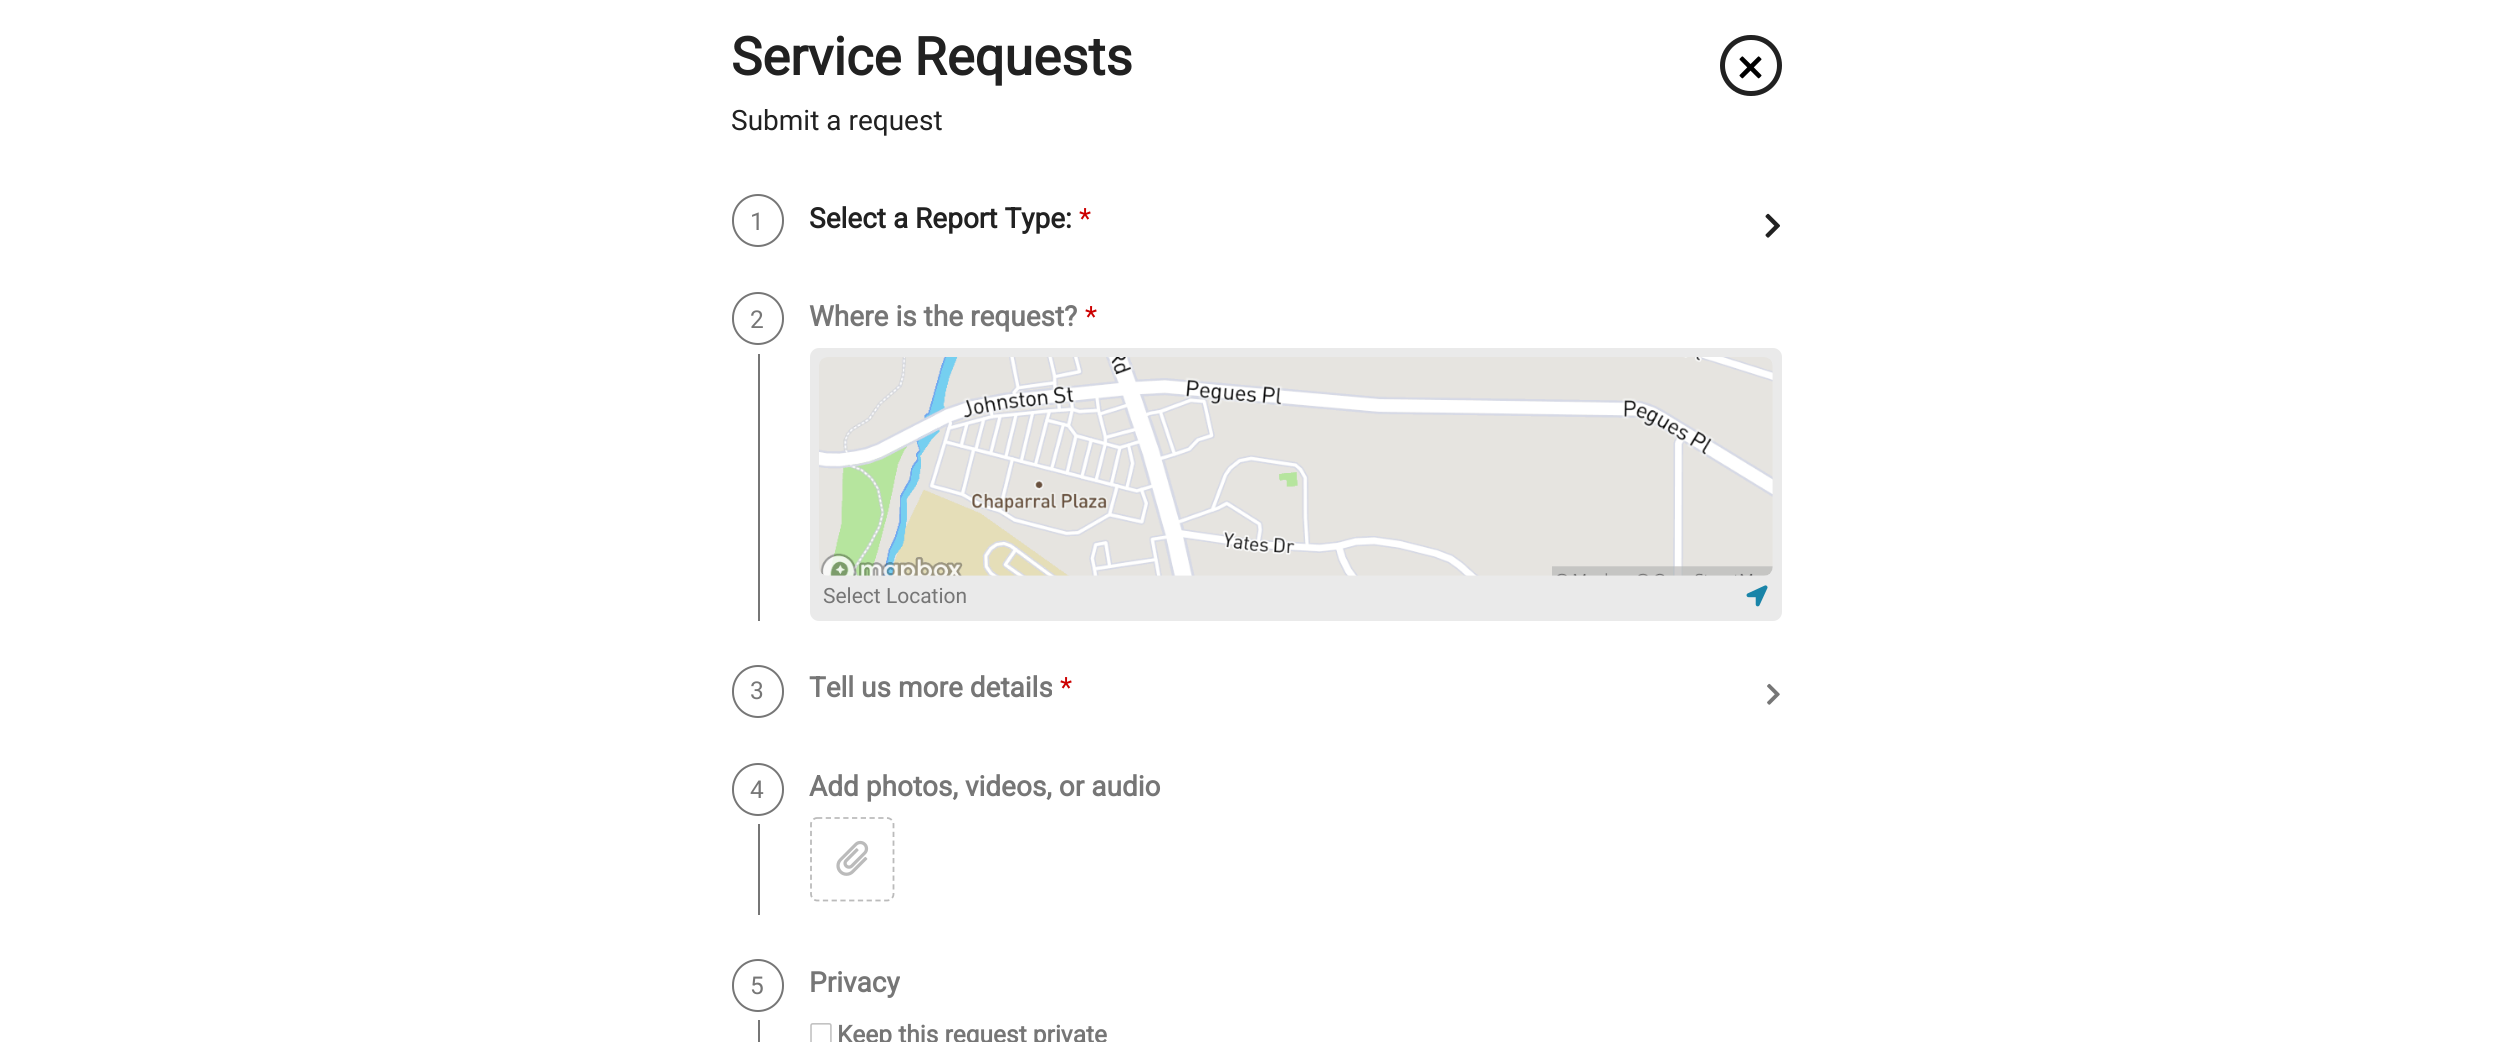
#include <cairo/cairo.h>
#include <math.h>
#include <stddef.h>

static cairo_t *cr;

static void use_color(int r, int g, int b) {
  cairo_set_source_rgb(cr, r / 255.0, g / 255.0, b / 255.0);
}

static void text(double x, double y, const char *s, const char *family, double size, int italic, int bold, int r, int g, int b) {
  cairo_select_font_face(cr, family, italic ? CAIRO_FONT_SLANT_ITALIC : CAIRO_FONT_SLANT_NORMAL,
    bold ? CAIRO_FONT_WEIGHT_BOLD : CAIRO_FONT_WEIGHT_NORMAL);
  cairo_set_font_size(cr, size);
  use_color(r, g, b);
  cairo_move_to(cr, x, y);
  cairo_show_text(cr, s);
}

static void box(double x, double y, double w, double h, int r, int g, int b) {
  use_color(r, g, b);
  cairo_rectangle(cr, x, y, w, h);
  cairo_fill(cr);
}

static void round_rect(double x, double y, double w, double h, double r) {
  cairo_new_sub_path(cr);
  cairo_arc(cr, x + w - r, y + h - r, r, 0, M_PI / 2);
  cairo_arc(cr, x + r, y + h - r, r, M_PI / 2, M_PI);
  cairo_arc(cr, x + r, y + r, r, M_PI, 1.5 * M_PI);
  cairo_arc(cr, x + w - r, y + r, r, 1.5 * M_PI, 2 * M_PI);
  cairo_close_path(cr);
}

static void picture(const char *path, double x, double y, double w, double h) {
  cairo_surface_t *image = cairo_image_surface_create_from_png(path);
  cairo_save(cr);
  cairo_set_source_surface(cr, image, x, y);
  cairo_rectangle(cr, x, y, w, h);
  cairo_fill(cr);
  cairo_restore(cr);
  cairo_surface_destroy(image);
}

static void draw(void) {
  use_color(255, 255, 255);
  cairo_paint(cr);
  round_rect(1722.5, 37.5, 57, 56, 28);
  use_color(33, 33, 33);
  cairo_set_line_width(cr, 5);
  cairo_stroke(cr);
  picture("img_01.png", 1739, 56, 23, 23);
  round_rect(733, 195, 50, 51, 25);
  use_color(118, 118, 118);
  cairo_set_line_width(cr, 2);
  cairo_stroke(cr);
  picture("img_02.png", 1765, 213, 15, 25);
  round_rect(733, 293, 50, 51, 25);
  cairo_stroke(cr);
  box(758, 354, 2, 267, 118, 118, 118);
  use_color(234, 234, 234);
  round_rect(810, 348, 972, 273, 9);
  cairo_fill(cr);
  picture("img_03.png", 819, 357, 954, 219);
  picture("img_04.png", 1746, 585, 22, 22);
  round_rect(733, 666, 50, 51, 25);
  use_color(118, 118, 118);
  cairo_stroke(cr);
  picture("img_05.png", 1767, 683, 13, 22);
  round_rect(733, 764, 50, 51, 25);
  cairo_stroke(cr);
  box(758, 824, 2, 91, 118, 118, 118);
  cairo_new_path(cr);
  cairo_move_to(cr, 817, 818);
  cairo_line_to(cr, 887, 818);
  cairo_curve_to(cr, 890.5, 818, 893.5, 821, 893.5, 824);
  cairo_line_to(cr, 893.5, 894);
  cairo_curve_to(cr, 893.5, 897.5, 890.5, 900.5, 887, 900.5);
  cairo_line_to(cr, 817, 900.5);
  cairo_curve_to(cr, 814, 900.5, 811, 897.5, 811, 894);
  cairo_line_to(cr, 811, 824);
  cairo_curve_to(cr, 811, 821, 814, 818, 817, 818);
  cairo_close_path(cr);
  use_color(187, 187, 187);
  cairo_set_line_width(cr, 1.8);
  cairo_set_dash(cr, (double[]){5.25, 3.5}, 2, 0);
  cairo_stroke(cr);
  picture("img_06.png", 836, 840, 33, 36);
  round_rect(733, 960, 50, 51, 25);
  use_color(118, 118, 118);
  cairo_set_line_width(cr, 2);
  cairo_set_dash(cr, NULL, 0, 0);
  cairo_stroke(cr);
  box(758, 1020, 2, 22, 118, 118, 118);
  picture("img_07.png", 810, 1023, 22, 19);
  text(731, 75, "Service Requests", "Roboto", 52.5, 0, 1, 33, 33, 33);
  text(731, 130, "Submit a request", "Roboto", 28, 0, 0, 33, 33, 33);
  text(750, 230, "1", "Roboto", 24.5, 0, 0, 118, 118, 118);
  text(809, 228, "Select a Report Type:", "Roboto", 28, 0, 1, 33, 33, 33);
  text(1079, 228, "*", "Roboto", 28, 0, 0, 204, 0, 0);
  text(750, 328, "2", "Roboto", 24.5, 0, 0, 118, 118, 118);
  text(809, 326, "Where is the request?", "Roboto", 28, 0, 1, 118, 118, 118);
  text(1085, 326, "*", "Roboto", 28, 0, 0, 204, 0, 0);
  text(823, 603, "Select Location", "Roboto", 21, 0, 0, 118, 118, 118);
  text(750, 699, "3", "Roboto", 24.5, 0, 0, 118, 118, 118);
  text(809, 697, "Tell us more details", "Roboto", 28, 0, 1, 118, 118, 118);
  text(1060, 697, "*", "Roboto", 28, 0, 0, 204, 0, 0);
  text(750, 798, "4", "Roboto", 24.5, 0, 0, 118, 118, 118);
  text(809, 796, "Add photos, videos, or audio", "Roboto", 28, 0, 1, 118, 118, 118);
  text(750, 994, "5", "Roboto", 24.5, 0, 0, 118, 118, 118);
  text(809, 992, "Privacy", "Roboto", 28, 0, 1, 118, 118, 118);
  text(837, 1043, "Keep this request private", "Roboto", 24.5, 0, 1, 118, 118, 118);
}

int main(void) {
  cairo_surface_t *surface = cairo_image_surface_create(CAIRO_FORMAT_RGB24, 2511, 1042);
  cr = cairo_create(surface);
  cairo_font_options_t *options = cairo_font_options_create();
  cairo_font_options_set_hint_metrics(options, CAIRO_HINT_METRICS_OFF);
  cairo_font_options_set_hint_style(options, CAIRO_HINT_STYLE_NONE);
  cairo_set_font_options(cr, options);
  cairo_set_miter_limit(cr, 4);
  draw();
  cairo_surface_write_to_png(surface, "out.png");
  cairo_font_options_destroy(options);
  cairo_destroy(cr);
  cairo_surface_destroy(surface);
  return 0;
}
